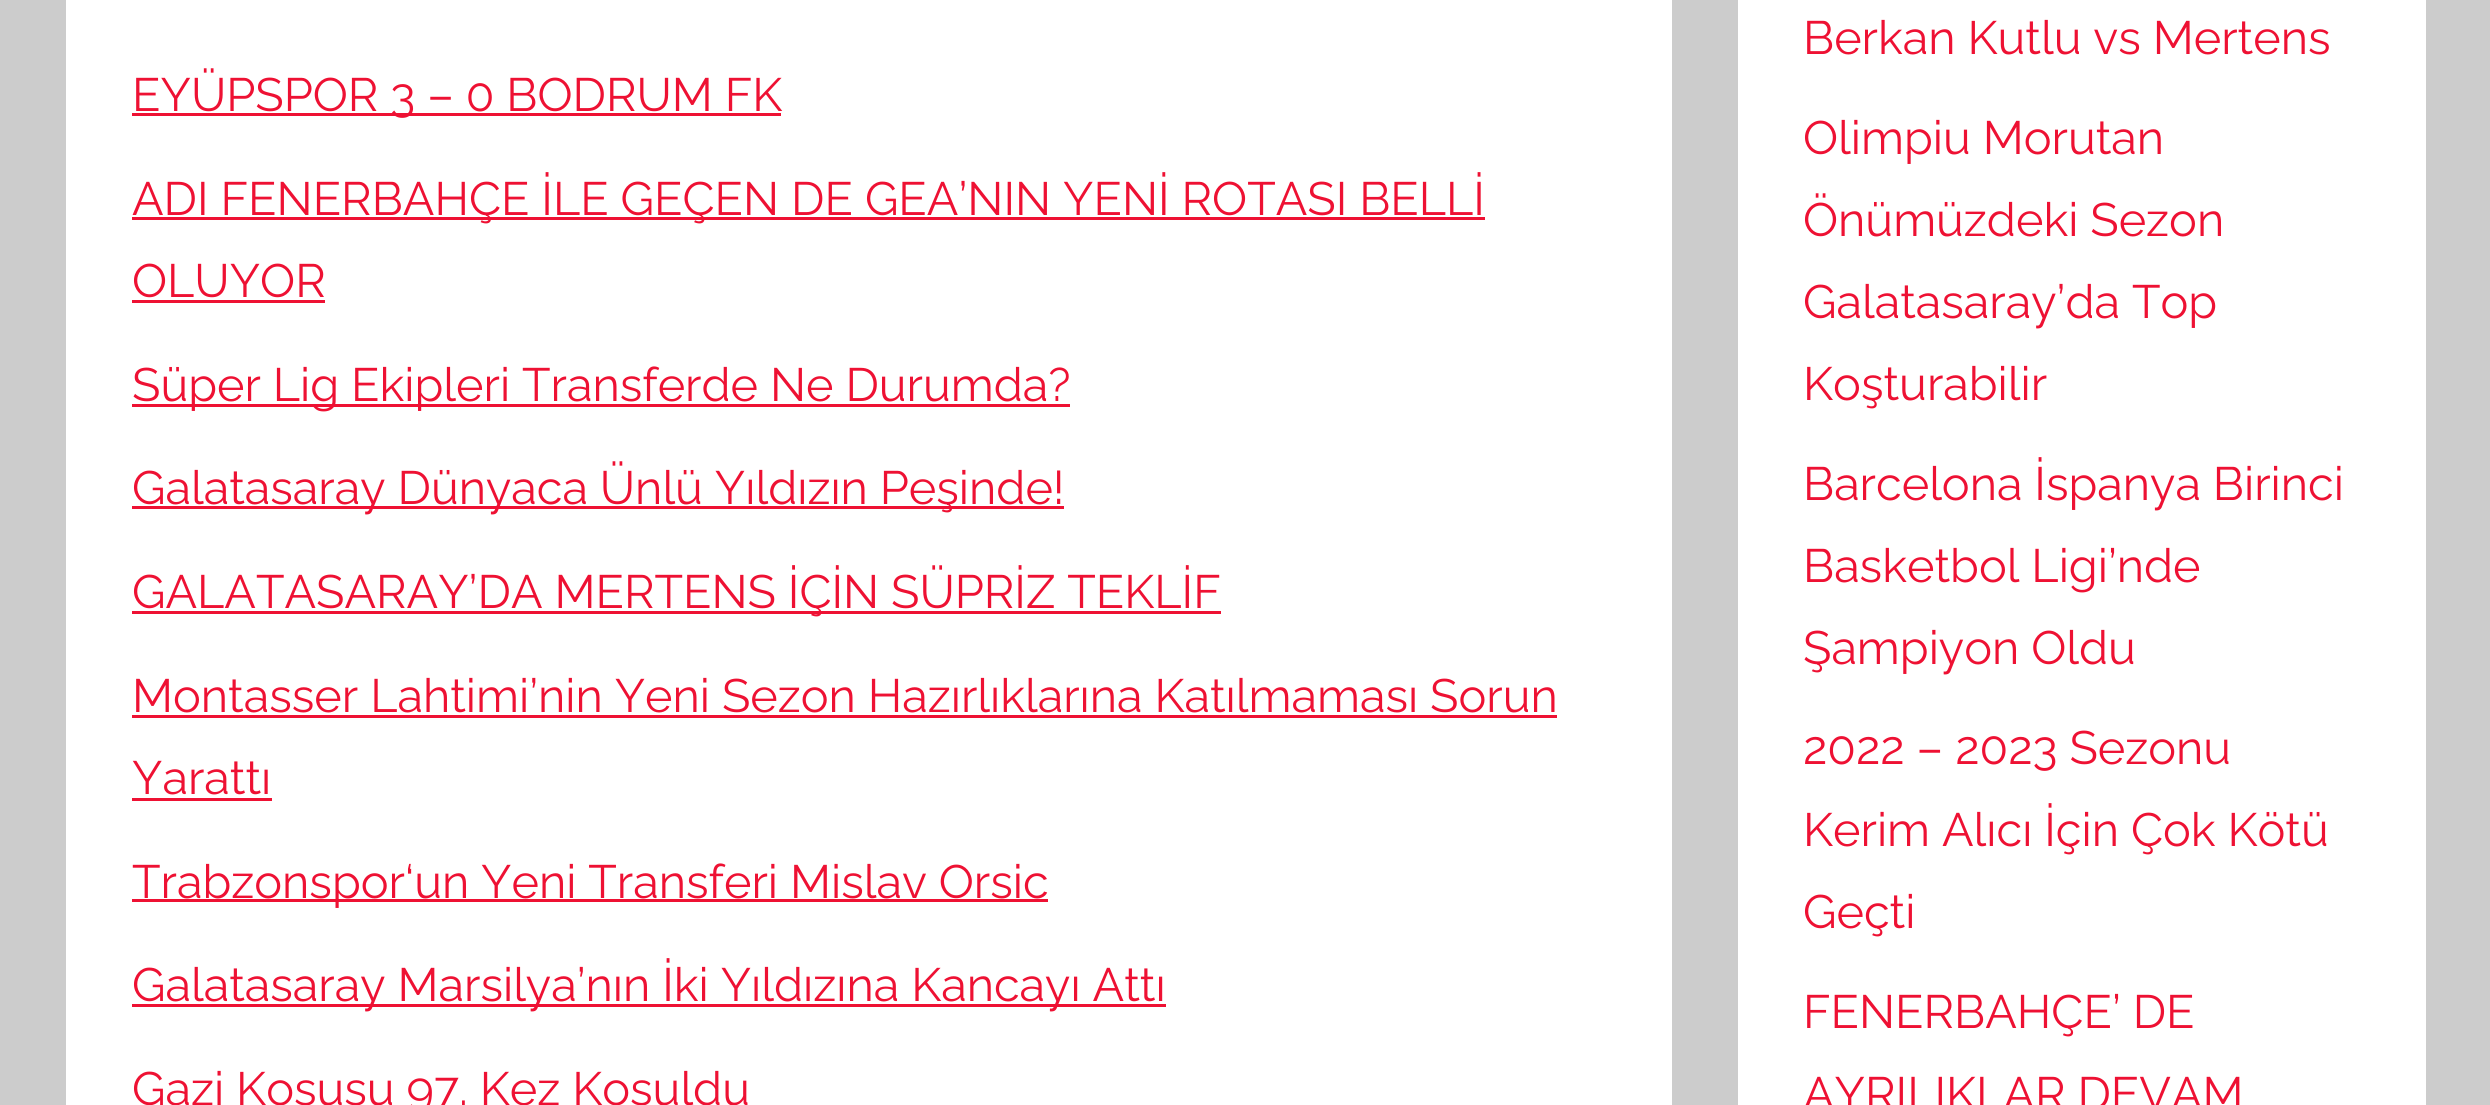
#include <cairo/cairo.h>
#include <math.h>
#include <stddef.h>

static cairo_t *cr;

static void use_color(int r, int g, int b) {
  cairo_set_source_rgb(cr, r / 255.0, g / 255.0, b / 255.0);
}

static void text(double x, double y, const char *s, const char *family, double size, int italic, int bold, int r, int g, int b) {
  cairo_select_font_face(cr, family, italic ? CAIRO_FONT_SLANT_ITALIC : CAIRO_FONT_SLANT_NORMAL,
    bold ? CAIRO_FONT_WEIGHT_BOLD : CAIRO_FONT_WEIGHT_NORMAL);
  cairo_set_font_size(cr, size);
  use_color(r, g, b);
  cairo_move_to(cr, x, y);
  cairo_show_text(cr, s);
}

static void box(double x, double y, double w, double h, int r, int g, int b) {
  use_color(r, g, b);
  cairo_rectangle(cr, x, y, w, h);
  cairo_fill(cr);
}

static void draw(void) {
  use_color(204, 204, 204);
  cairo_paint(cr);
  box(66, 0, 1606, 1105, 255, 255, 255);
  box(132, 113, 649, 3, 238, 17, 51);
  box(132, 217, 1353, 3, 238, 17, 51);
  box(132, 300, 193, 3, 238, 17, 51);
  box(132, 404, 938, 3, 238, 17, 51);
  box(132, 506, 932, 3, 238, 17, 51);
  box(132, 611, 1089, 3, 238, 17, 51);
  box(132, 715, 1425, 3, 238, 17, 51);
  box(132, 798, 140, 3, 238, 17, 51);
  box(132, 899, 916, 3, 238, 17, 51);
  box(132, 1004, 1034, 3, 238, 17, 51);
  box(1738, 0, 688, 1105, 255, 255, 255);
  text(132, 111, "EYÜPSPOR 3 – 0 BODRUM FK", "Raleway Thin", 46.75, 0, 0, 238, 17, 51);
  text(132, 215, "ADI FENERBAHÇE İLE GEÇEN DE GEA’NIN YENİ ROTASI BELLİ", "Raleway Thin", 46.75, 0, 0, 238, 17, 51);
  text(132, 297, "OLUYOR", "Raleway Thin", 46.75, 0, 0, 238, 17, 51);
  text(132, 401, "Süper Lig Ekipleri Transferde Ne Durumda?", "Raleway Thin", 46.75, 0, 0, 238, 17, 51);
  text(132, 504, "Galatasaray Dünyaca Ünlü Yıldızın Peşinde!", "Raleway Thin", 46.75, 0, 0, 238, 17, 51);
  text(132, 608, "GALATASARAY’DA MERTENS İÇİN SÜPRİZ TEKLİF", "Raleway Thin", 46.75, 0, 0, 238, 17, 51);
  text(132, 712, "Montasser Lahtimi’nin Yeni Sezon Hazırlıklarına Katılmaması Sorun", "Raleway Thin", 46.75, 0, 0, 238, 17, 51);
  text(132, 794, "Yarattı", "Raleway Thin", 46.75, 0, 0, 238, 17, 51);
  text(132, 898, "Trabzonspor‘un Yeni Transferi Mislav Orsic", "Raleway Thin", 46.75, 0, 0, 238, 17, 51);
  text(132, 1001, "Galatasaray Marsilya’nın İki Yıldızına Kancayı Attı", "Raleway Thin", 46.75, 0, 0, 238, 17, 51);
  text(132, 1105, "Gazi Koşusu 97. Kez Koşuldu", "Raleway Thin", 46.75, 0, 0, 238, 17, 51);
  text(1803, 54, "Berkan Kutlu vs Mertens", "Raleway Thin", 46.75, 0, 0, 238, 17, 51);
  text(1803, 154, "Olimpiu Morutan", "Raleway Thin", 46.75, 0, 0, 238, 17, 51);
  text(1803, 236, "Önümüzdeki Sezon", "Raleway Thin", 46.75, 0, 0, 238, 17, 51);
  text(1803, 318, "Galatasaray’da Top", "Raleway Thin", 46.75, 0, 0, 238, 17, 51);
  text(1803, 400, "Koşturabilir", "Raleway Thin", 46.75, 0, 0, 238, 17, 51);
  text(1803, 500, "Barcelona İspanya Birinci", "Raleway Thin", 46.75, 0, 0, 238, 17, 51);
  text(1803, 582, "Basketbol Ligi’nde", "Raleway Thin", 46.75, 0, 0, 238, 17, 51);
  text(1803, 664, "Şampiyon Oldu", "Raleway Thin", 46.75, 0, 0, 238, 17, 51);
  text(1803, 764, "2022 – 2023 Sezonu", "Raleway Thin", 46.75, 0, 0, 238, 17, 51);
  text(1803, 846, "Kerim Alıcı İçin Çok Kötü", "Raleway Thin", 46.75, 0, 0, 238, 17, 51);
  text(1803, 928, "Geçti", "Raleway Thin", 46.75, 0, 0, 238, 17, 51);
  text(1803, 1028, "FENERBAHÇE’ DE", "Raleway Thin", 46.75, 0, 0, 238, 17, 51);
  text(1803, 1110, "AYRILIKLAR DEVAM", "Raleway Thin", 46.75, 0, 0, 238, 17, 51);
}

int main(void) {
  cairo_surface_t *surface = cairo_image_surface_create(CAIRO_FORMAT_RGB24, 2490, 1105);
  cr = cairo_create(surface);
  cairo_font_options_t *options = cairo_font_options_create();
  cairo_font_options_set_hint_metrics(options, CAIRO_HINT_METRICS_OFF);
  cairo_font_options_set_hint_style(options, CAIRO_HINT_STYLE_NONE);
  cairo_set_font_options(cr, options);
  cairo_set_miter_limit(cr, 4);
  draw();
  cairo_surface_write_to_png(surface, "out.png");
  cairo_font_options_destroy(options);
  cairo_destroy(cr);
  cairo_surface_destroy(surface);
  return 0;
}
